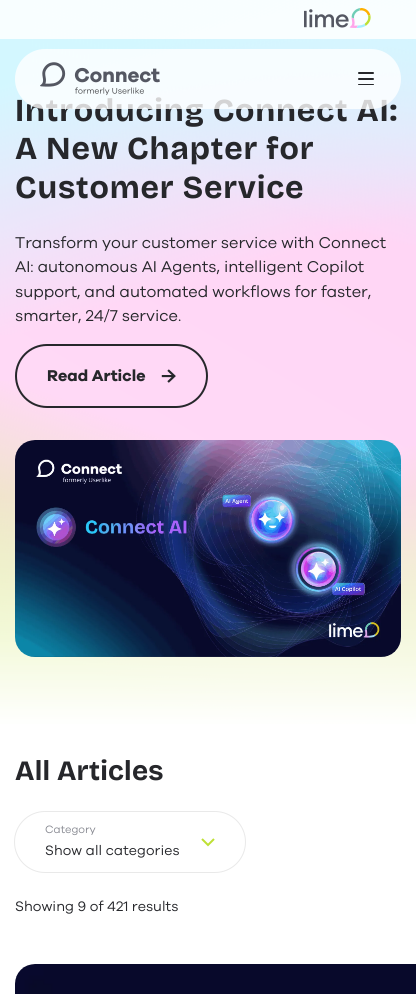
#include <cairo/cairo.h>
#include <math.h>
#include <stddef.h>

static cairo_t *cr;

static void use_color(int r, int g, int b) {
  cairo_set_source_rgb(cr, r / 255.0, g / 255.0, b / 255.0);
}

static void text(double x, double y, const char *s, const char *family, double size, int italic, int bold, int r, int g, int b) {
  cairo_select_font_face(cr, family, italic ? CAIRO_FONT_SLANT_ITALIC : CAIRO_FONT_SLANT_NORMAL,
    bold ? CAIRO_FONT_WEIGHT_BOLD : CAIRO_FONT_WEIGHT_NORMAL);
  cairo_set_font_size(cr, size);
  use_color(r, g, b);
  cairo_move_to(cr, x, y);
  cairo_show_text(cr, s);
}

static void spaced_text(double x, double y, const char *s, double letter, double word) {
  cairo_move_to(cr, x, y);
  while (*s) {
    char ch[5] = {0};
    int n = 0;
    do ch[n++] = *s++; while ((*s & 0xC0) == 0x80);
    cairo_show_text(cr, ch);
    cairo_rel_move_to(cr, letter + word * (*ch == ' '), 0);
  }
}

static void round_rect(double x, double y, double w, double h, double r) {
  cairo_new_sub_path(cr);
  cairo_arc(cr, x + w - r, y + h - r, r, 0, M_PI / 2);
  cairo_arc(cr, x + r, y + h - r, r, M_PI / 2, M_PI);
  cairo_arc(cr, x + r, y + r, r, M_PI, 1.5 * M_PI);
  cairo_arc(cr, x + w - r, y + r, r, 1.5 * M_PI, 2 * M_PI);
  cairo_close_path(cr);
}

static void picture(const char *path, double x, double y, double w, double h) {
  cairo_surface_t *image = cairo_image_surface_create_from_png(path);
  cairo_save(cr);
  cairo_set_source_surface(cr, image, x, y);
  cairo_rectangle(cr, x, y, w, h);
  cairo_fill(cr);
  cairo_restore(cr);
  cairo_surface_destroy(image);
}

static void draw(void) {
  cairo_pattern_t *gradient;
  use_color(255, 255, 255);
  cairo_paint(cr);
  gradient = cairo_pattern_create_linear(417, 0.8, -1.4, 726);
  cairo_pattern_add_color_stop_rgba(gradient, 0, 1, 0.651, 0.918, 1);
  cairo_pattern_add_color_stop_rgba(gradient, 1, 1, 0.722, 0.933, 1);
  cairo_set_source(cr, gradient);
  cairo_pattern_destroy(gradient);
  cairo_rectangle(cr, 0, 0, 416, 724);
  cairo_fill(cr);
  gradient = cairo_pattern_create_linear(89, -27, 327, 754);
  cairo_pattern_add_color_stop_rgba(gradient, 0.1, 0.651, 0.937, 1, 1);
  cairo_pattern_add_color_stop_rgba(gradient, 0.4, 0.651, 0.937, 1, 0);
  cairo_set_source(cr, gradient);
  cairo_pattern_destroy(gradient);
  cairo_rectangle(cr, 0, 0, 416, 335);
  cairo_fill(cr);
  gradient = cairo_pattern_create_linear(313, -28, 103, 755);
  cairo_pattern_add_color_stop_rgba(gradient, 0, 0.651, 0.937, 1, 1);
  cairo_pattern_add_color_stop_rgba(gradient, 0.3, 0.651, 0.937, 1, 0);
  cairo_set_source(cr, gradient);
  cairo_pattern_destroy(gradient);
  cairo_rectangle(cr, 32, 0, 384, 245);
  cairo_fill(cr);
  gradient = cairo_pattern_create_linear(67, 751, 349, -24);
  cairo_pattern_add_color_stop_rgba(gradient, 0.1, 0.745, 0.878, 0.204, 1);
  cairo_pattern_add_color_stop_rgba(gradient, 0.4, 0.745, 0.878, 0.204, 0);
  cairo_set_source(cr, gradient);
  cairo_pattern_destroy(gradient);
  cairo_rectangle(cr, 0, 381, 416, 343);
  cairo_fill(cr);
  gradient = cairo_pattern_create_linear(411, 730, 5, -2.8);
  cairo_pattern_add_color_stop_rgba(gradient, 0, 0.745, 0.878, 0.204, 1);
  cairo_pattern_add_color_stop_rgba(gradient, 0.3, 0.745, 0.878, 0.204, 0);
  cairo_set_source(cr, gradient);
  cairo_pattern_destroy(gradient);
  cairo_rectangle(cr, 97, 446, 319, 278);
  cairo_fill(cr);
  gradient = cairo_pattern_create_linear(208, 727, 208, 0);
  cairo_pattern_add_color_stop_rgba(gradient, 0, 1, 1, 1, 1);
  cairo_pattern_add_color_stop_rgba(gradient, 0.32, 1, 1, 1, 0.51);
  cairo_set_source(cr, gradient);
  cairo_pattern_destroy(gradient);
  cairo_rectangle(cr, 0, 0, 416, 724);
  cairo_fill(cr);
  cairo_set_source_rgba(cr, 1, 1, 1, 0.85);
  cairo_rectangle(cr, 0, 0, 416, 39);
  cairo_fill(cr);
  picture("img_01.png", 304, 8, 67, 20);
  round_rect(16, 345, 191, 62, 31);
  use_color(38, 39, 43);
  cairo_stroke(cr);
  picture("img_03.png", 161, 369, 15, 14);
  picture("img_04.png", 15, 440, 386, 217);
  round_rect(14.5, 811.5, 231, 61, 30.5);
  use_color(233, 233, 233);
  cairo_set_line_width(cr, 1);
  cairo_stroke(cr);
  cairo_new_path(cr);
  cairo_move_to(cr, 214, 839);
  cairo_line_to(cr, 208, 845);
  cairo_line_to(cr, 202, 839);
  use_color(190, 224, 52);
  cairo_set_line_width(cr, 2);
  cairo_stroke(cr);
  picture("img_05.png", 15, 964, 401, 30);
  cairo_select_font_face(cr, "Bricolage Grotesque", CAIRO_FONT_SLANT_NORMAL, CAIRO_FONT_WEIGHT_BOLD);
  cairo_set_font_size(cr, 32);
  use_color(38, 39, 43);
  spaced_text(15, 121, "Introducing Connect AI:", 0.8, 0);
  cairo_set_source_rgba(cr, 1, 1, 1, 0.8);
  round_rect(15, 49, 386, 60, 30);
  cairo_fill(cr);
  use_color(38, 39, 43);
  round_rect(358, 84, 16, 1, 0.5);
  cairo_fill(cr);
  round_rect(358, 78, 16, 2, 1);
  cairo_fill(cr);
  round_rect(358, 72, 16, 2, 1);
  cairo_fill(cr);
  picture("img_02.png", 40, 62, 120, 34);
  spaced_text(15, 159, "A New Chapter for", 0.8, 0);
  spaced_text(15, 198, "Customer Service", 0.8, 0);
  text(15, 248, "Transform your customer service with Connect", "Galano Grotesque", 16.15, 0, 0, 38, 39, 43);
  text(15, 272, "AI: autonomous AI Agents, intelligent Copilot", "Galano Grotesque", 16.15, 0, 0, 38, 39, 43);
  text(15, 297, "support, and automated workflows for faster,", "Galano Grotesque", 16.15, 0, 0, 38, 39, 43);
  text(15, 321, "smarter, 24/7 service.", "Galano Grotesque", 16.15, 0, 0, 38, 39, 43);
  text(47, 381, "Read Article", "Galano Grotesque", 16.15, 0, 1, 38, 39, 43);
  cairo_select_font_face(cr, "Bricolage Grotesque", CAIRO_FONT_SLANT_NORMAL, CAIRO_FONT_WEIGHT_BOLD);
  cairo_set_font_size(cr, 28);
  spaced_text(15, 780, "All Articles", 0.25, 0);
  text(45, 833, "Category", "Galano Grotesque", 11, 0, 0, 135, 137, 145);
  cairo_set_font_size(cr, 14);
  use_color(38, 39, 43);
  spaced_text(45, 855, "Show all categories", 0.1, 0);
  text(15, 911, "Showing 9 of 421 results", "Galano Grotesque", 14.2, 0, 0, 38, 39, 43);
}

int main(void) {
  cairo_surface_t *surface = cairo_image_surface_create(CAIRO_FORMAT_RGB24, 416, 994);
  cr = cairo_create(surface);
  cairo_font_options_t *options = cairo_font_options_create();
  cairo_font_options_set_hint_metrics(options, CAIRO_HINT_METRICS_OFF);
  cairo_font_options_set_hint_style(options, CAIRO_HINT_STYLE_NONE);
  cairo_set_font_options(cr, options);
  cairo_set_miter_limit(cr, 4);
  draw();
  cairo_surface_write_to_png(surface, "out.png");
  cairo_font_options_destroy(options);
  cairo_destroy(cr);
  cairo_surface_destroy(surface);
  return 0;
}
